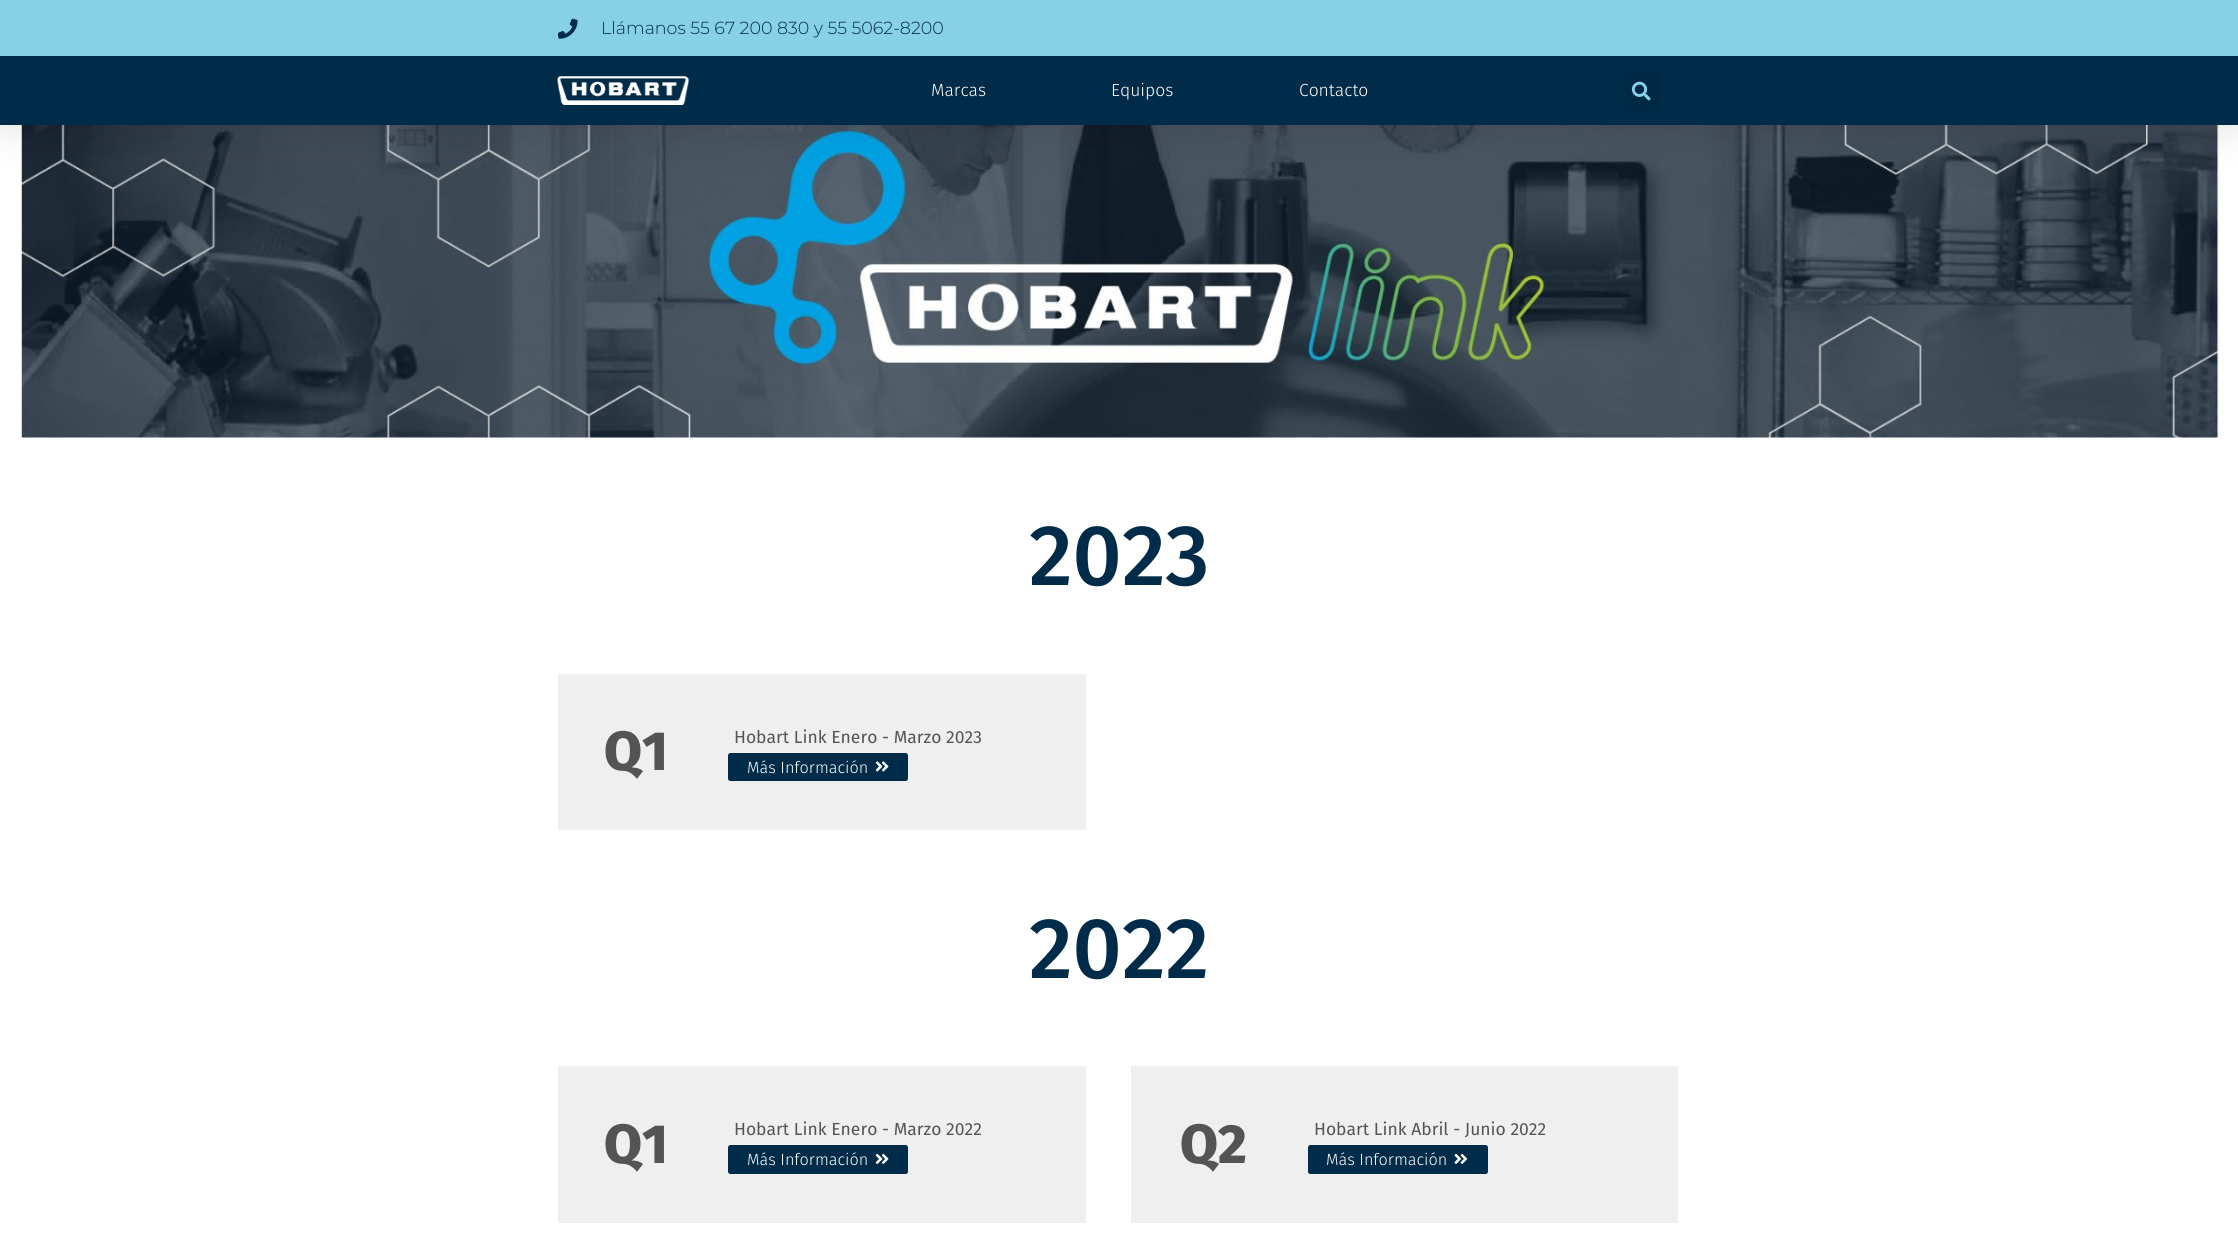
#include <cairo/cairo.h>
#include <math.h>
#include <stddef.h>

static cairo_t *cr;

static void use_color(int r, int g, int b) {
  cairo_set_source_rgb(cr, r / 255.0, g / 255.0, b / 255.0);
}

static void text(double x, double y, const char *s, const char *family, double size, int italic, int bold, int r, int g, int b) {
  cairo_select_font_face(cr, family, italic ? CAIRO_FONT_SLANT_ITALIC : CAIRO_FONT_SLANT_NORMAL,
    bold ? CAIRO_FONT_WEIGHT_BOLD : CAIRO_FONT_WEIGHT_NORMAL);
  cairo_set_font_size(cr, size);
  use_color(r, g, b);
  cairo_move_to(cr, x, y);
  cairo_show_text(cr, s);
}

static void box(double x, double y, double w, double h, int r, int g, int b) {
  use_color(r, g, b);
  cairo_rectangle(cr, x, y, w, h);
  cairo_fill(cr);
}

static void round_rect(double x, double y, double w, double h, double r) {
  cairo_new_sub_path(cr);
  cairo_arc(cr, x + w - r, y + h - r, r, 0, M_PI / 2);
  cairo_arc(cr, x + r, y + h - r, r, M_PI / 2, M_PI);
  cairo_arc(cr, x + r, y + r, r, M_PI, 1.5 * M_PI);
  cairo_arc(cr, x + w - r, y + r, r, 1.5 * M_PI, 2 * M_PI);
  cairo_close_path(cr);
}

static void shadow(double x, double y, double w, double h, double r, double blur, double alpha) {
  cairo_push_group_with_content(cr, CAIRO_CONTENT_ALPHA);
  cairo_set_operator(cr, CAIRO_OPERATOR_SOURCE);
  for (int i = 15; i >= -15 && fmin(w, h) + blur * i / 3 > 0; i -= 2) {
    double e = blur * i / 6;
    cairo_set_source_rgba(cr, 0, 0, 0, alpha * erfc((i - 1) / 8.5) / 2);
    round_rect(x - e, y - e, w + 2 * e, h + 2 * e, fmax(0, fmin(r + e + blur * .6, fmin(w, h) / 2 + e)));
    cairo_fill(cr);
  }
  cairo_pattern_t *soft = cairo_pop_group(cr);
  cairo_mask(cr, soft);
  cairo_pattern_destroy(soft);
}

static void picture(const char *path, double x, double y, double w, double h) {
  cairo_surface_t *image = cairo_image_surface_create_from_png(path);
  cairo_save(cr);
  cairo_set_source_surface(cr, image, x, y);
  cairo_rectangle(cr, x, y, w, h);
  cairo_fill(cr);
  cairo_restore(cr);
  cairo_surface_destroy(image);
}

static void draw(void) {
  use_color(255, 255, 255);
  cairo_paint(cr);
  picture("img_04.png", 20, 125, 2205, 313);
  use_color(0, 0, 0);
  shadow(0, 6, 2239, 125, 0, 19, 0.1);
  box(0, 0, 2238, 56, 135, 209, 230);
  picture("img_01.png", 558, 18, 20, 21);
  box(0, 56, 2238, 69, 0, 43, 73);
  picture("img_02.png", 557, 76, 133, 29);
  use_color(0, 41, 69);
  round_rect(1623, 73, 37, 37, 4);
  cairo_fill(cr);
  picture("img_03.png", 1631, 81, 20, 20);
  box(558, 674, 528, 156, 239, 239, 239);
  use_color(0, 43, 73);
  round_rect(728, 753, 180, 28, 2.5);
  cairo_fill(cr);
  picture("img_05.png", 875, 761, 14, 11);
  box(558, 1066, 528, 157, 239, 239, 239);
  use_color(0, 43, 73);
  round_rect(728, 1145, 180, 29, 2.5);
  cairo_fill(cr);
  picture("img_06.png", 875, 1153, 14, 11);
  box(1131, 1066, 547, 157, 239, 239, 239);
  use_color(0, 43, 73);
  round_rect(1308, 1145, 180, 29, 2.5);
  cairo_fill(cr);
  picture("img_07.png", 1454, 1153, 14, 11);
  text(601, 34, "Llámanos 55 67 200 830 y 55 5062-8200", "Montserrat Light", 17.5, 0, 0, 0, 43, 73);
  text(931, 96, "Marcas", "Fira Sans Light", 17.5, 0, 0, 255, 255, 255);
  text(1111, 96, "Equipos", "Fira Sans Light", 17.5, 0, 0, 255, 255, 255);
  text(1299, 96, "Contacto", "Fira Sans Light", 17.5, 0, 0, 255, 255, 255);
  text(1029, 585, "2023", "Fira Sans Medium", 86, 0, 0, 0, 43, 73);
  text(604, 770, "Q1", "Fira Sans ExtraBold", 55, 0, 0, 82, 85, 84);
  text(734, 743, "Hobart Link Enero - Marzo 2023", "Fira Sans", 17.5, 0, 0, 82, 85, 84);
  text(747, 773, "Más Información", "Fira Sans Light", 16.25, 0, 0, 255, 255, 255);
  text(1029, 978, "2022", "Fira Sans Medium", 86, 0, 0, 0, 43, 73);
  text(604, 1163, "Q1", "Fira Sans ExtraBold", 55, 0, 0, 82, 85, 84);
  text(734, 1135, "Hobart Link Enero - Marzo 2022", "Fira Sans", 17.5, 0, 0, 82, 85, 84);
  text(747, 1165, "Más Información", "Fira Sans Light", 16.25, 0, 0, 255, 255, 255);
  text(1180, 1163, "Q2", "Fira Sans ExtraBold", 55, 0, 0, 82, 85, 84);
  text(1314, 1135, "Hobart Link Abril - Junio 2022", "Fira Sans", 17.5, 0, 0, 82, 85, 84);
  text(1326, 1165, "Más Información", "Fira Sans Light", 16.25, 0, 0, 255, 255, 255);
}

int main(void) {
  cairo_surface_t *surface = cairo_image_surface_create(CAIRO_FORMAT_RGB24, 2238, 1253);
  cr = cairo_create(surface);
  cairo_font_options_t *options = cairo_font_options_create();
  cairo_font_options_set_hint_metrics(options, CAIRO_HINT_METRICS_OFF);
  cairo_font_options_set_hint_style(options, CAIRO_HINT_STYLE_NONE);
  cairo_set_font_options(cr, options);
  cairo_set_miter_limit(cr, 4);
  draw();
  cairo_surface_write_to_png(surface, "out.png");
  cairo_font_options_destroy(options);
  cairo_destroy(cr);
  cairo_surface_destroy(surface);
  return 0;
}
